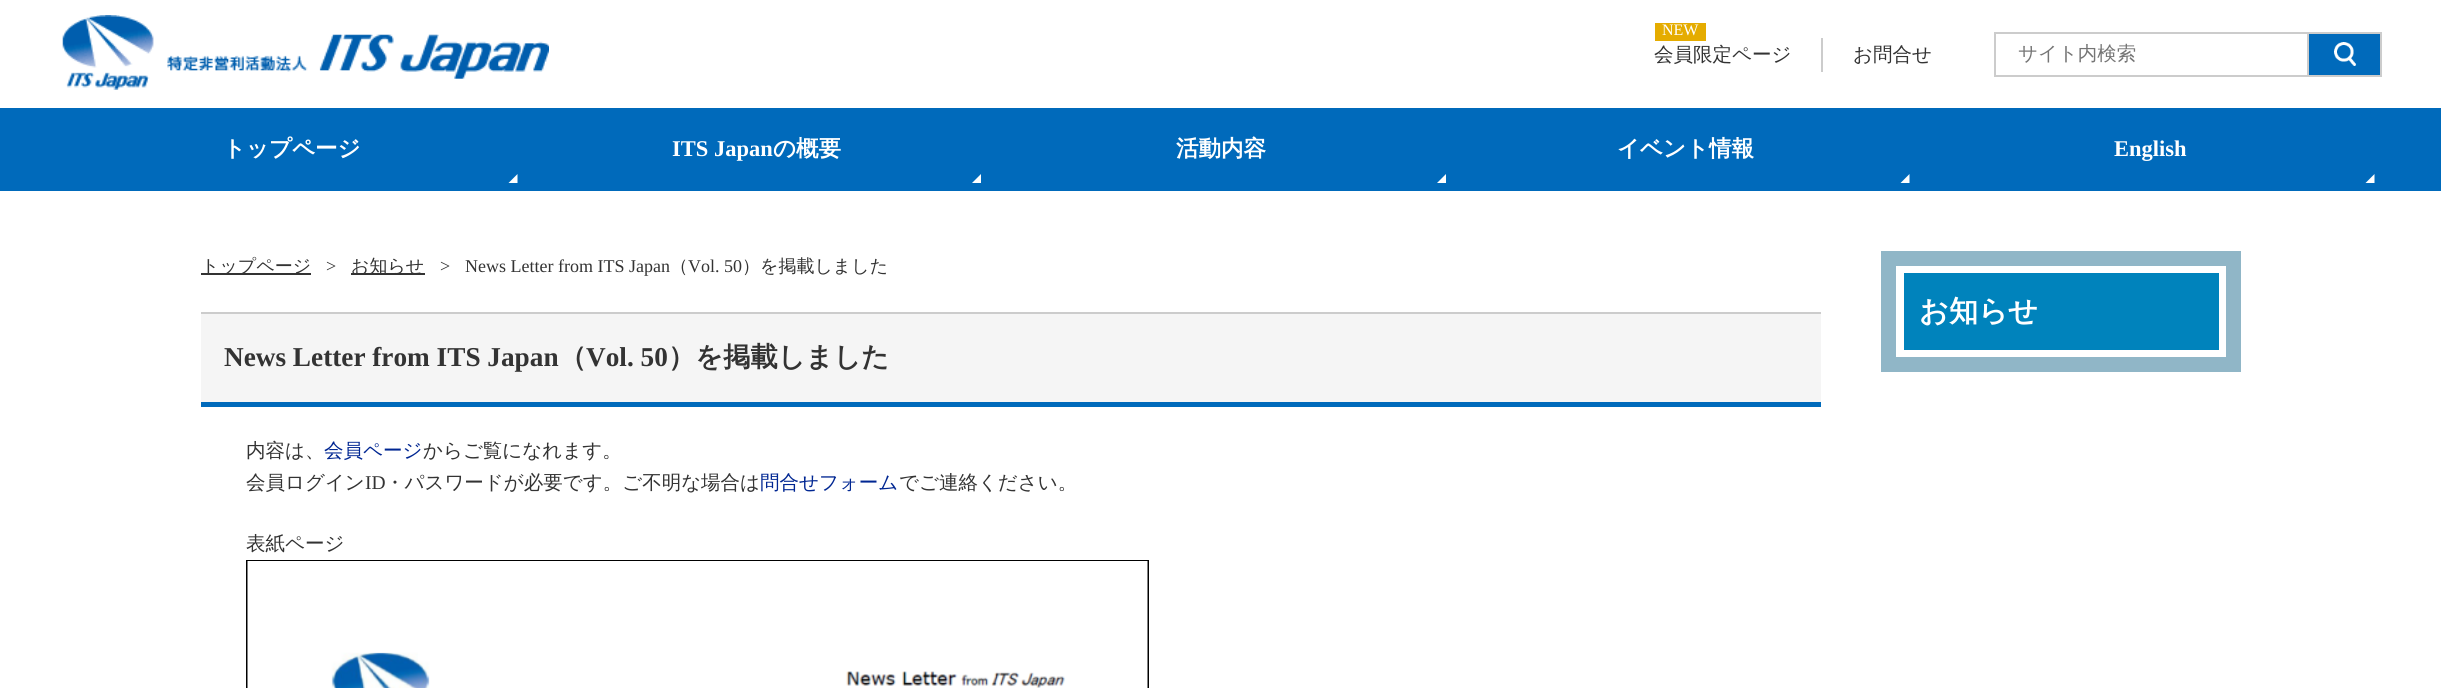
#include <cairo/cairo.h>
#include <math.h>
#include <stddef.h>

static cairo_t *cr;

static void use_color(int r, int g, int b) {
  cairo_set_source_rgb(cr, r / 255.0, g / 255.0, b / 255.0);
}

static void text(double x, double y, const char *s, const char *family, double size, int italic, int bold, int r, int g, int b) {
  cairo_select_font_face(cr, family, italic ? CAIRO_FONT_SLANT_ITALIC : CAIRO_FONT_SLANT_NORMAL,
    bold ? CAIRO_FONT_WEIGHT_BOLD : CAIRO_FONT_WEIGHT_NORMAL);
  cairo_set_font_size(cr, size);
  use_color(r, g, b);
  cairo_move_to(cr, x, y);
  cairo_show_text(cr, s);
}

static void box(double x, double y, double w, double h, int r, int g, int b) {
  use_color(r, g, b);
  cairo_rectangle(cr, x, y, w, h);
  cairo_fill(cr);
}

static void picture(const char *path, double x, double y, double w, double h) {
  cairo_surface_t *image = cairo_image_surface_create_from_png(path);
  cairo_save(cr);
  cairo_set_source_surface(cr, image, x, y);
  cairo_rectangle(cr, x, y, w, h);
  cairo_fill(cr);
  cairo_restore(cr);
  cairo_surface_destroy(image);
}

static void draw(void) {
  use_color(255, 255, 255);
  cairo_paint(cr);
  picture("img_01.png", 62, 15, 487, 75);
  box(1655, 23, 51, 18, 229, 172, 0);
  box(1821, 38, 2, 34, 204, 204, 204);
  use_color(0, 106, 187);
  cairo_rectangle(cr, 2308, 33, 73, 43);
  cairo_fill_preserve(cr);
  use_color(204, 204, 204);
  cairo_stroke(cr);
  cairo_rectangle(cr, 1995, 33, 313, 43);
  cairo_stroke(cr);
  picture("img_02.png", 2334, 42, 23, 24);
  box(0, 108, 2441, 83, 0, 106, 187);
  use_color(255, 255, 255);
  cairo_new_path(cr);
  cairo_move_to(cr, 517.5, 183);
  cairo_line_to(cr, 508.5, 183);
  cairo_line_to(cr, 517.5, 174);
  cairo_close_path(cr);
  cairo_fill(cr);
  cairo_new_path(cr);
  cairo_move_to(cr, 981, 183);
  cairo_line_to(cr, 972, 183);
  cairo_line_to(cr, 981, 174);
  cairo_close_path(cr);
  cairo_fill(cr);
  cairo_new_path(cr);
  cairo_move_to(cr, 1446, 183);
  cairo_line_to(cr, 1437, 183);
  cairo_line_to(cr, 1446, 174);
  cairo_close_path(cr);
  cairo_fill(cr);
  cairo_new_path(cr);
  cairo_move_to(cr, 1909.5, 183);
  cairo_line_to(cr, 1900.5, 183);
  cairo_line_to(cr, 1909.5, 174);
  cairo_close_path(cr);
  cairo_fill(cr);
  cairo_new_path(cr);
  cairo_move_to(cr, 2374.5, 183);
  cairo_line_to(cr, 2365.5, 183);
  cairo_line_to(cr, 2374.5, 174);
  cairo_close_path(cr);
  cairo_fill(cr);
  box(201, 273, 110, 2, 51, 51, 51);
  box(351, 273, 74, 2, 51, 51, 51);
  box(201, 314, 1620, 88, 245, 245, 245);
  box(201, 312, 1620, 2, 204, 204, 204);
  box(201, 402, 1620, 5, 0, 106, 187);
  cairo_rectangle(cr, 247, 561, 901, 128);
  use_color(0, 0, 0);
  cairo_stroke(cr);
  picture("img_03.png", 247, 561, 901, 127);
  cairo_rectangle(cr, 1888.5, 258.5, 345, 106);
  use_color(144, 182, 199);
  cairo_set_line_width(cr, 15);
  cairo_stroke(cr);
  box(1904, 273, 315, 77, 0, 131, 188);
  text(1662, 35, "NEW", "Liberation Serif", 16, 0, 0, 255, 255, 255);
  text(1654, 61, "会員限定ページ", "WenQuanYi Zen Hei Medium", 19.5, 0, 0, 51, 51, 51);
  text(1853, 61, "お問合せ", "WenQuanYi Zen Hei Medium", 19.5, 0, 0, 51, 51, 51);
  text(2018, 60, "サイト内検索", "WenQuanYi Zen Hei Medium", 19.5, 0, 0, 117, 117, 117);
  text(223, 156, "トップページ", "WenQuanYi Zen Hei", 22.5, 0, 1, 255, 255, 255);
  text(672, 156, "ITS Japan", "Liberation Serif", 22.5, 0, 1, 255, 255, 255);
  text(773, 156, "の概要", "WenQuanYi Zen Hei", 22.5, 0, 1, 255, 255, 255);
  text(1176, 156, "活動内容", "WenQuanYi Zen Hei", 22.5, 0, 1, 255, 255, 255);
  text(1617, 156, "イベント情報", "WenQuanYi Zen Hei", 22.5, 0, 1, 255, 255, 255);
  text(2114, 156, "English", "Liberation Serif", 22.5, 0, 1, 255, 255, 255);
  text(201, 272, "トップページ", "WenQuanYi Zen Hei Medium", 18, 0, 0, 51, 51, 51);
  text(326, 272, ">", "Liberation Serif", 18, 0, 0, 51, 51, 51);
  text(351, 272, "お知らせ", "WenQuanYi Zen Hei Medium", 18, 0, 0, 51, 51, 51);
  text(440, 272, ">", "Liberation Serif", 18, 0, 0, 51, 51, 51);
  text(465, 272, "News Letter from ITS Japan", "Liberation Serif", 18, 0, 0, 51, 51, 51);
  text(670, 272, "（", "WenQuanYi Zen Hei Medium", 18, 0, 0, 51, 51, 51);
  text(688, 272, "Vol. 50", "Liberation Serif", 18, 0, 0, 51, 51, 51);
  text(742, 272, "）を掲載しました", "WenQuanYi Zen Hei Medium", 18, 0, 0, 51, 51, 51);
  text(224, 366, "News Letter from ITS Japan", "Liberation Serif", 27.25, 0, 1, 51, 51, 51);
  text(559, 366, "（", "WenQuanYi Zen Hei", 27.25, 0, 1, 51, 51, 51);
  text(586, 366, "Vol. 50", "Liberation Serif", 27.25, 0, 1, 51, 51, 51);
  text(668, 366, "）を掲載しました", "WenQuanYi Zen Hei", 27.25, 0, 1, 51, 51, 51);
  text(246, 457, "内容は、", "WenQuanYi Zen Hei Medium", 19.5, 0, 0, 51, 51, 51);
  text(324, 457, "会員ページ", "WenQuanYi Zen Hei Medium", 19.5, 0, 0, 0, 38, 146);
  text(423, 457, "からご覧になれます。", "WenQuanYi Zen Hei Medium", 19.5, 0, 0, 51, 51, 51);
  text(246, 489, "会員ログイン", "WenQuanYi Zen Hei Medium", 19.5, 0, 0, 51, 51, 51);
  text(365, 489, "ID", "Liberation Serif", 19.5, 0, 0, 51, 51, 51);
  text(385, 489, "・パスワードが必要です。ご不明な場合は", "WenQuanYi Zen Hei Medium", 19.5, 0, 0, 51, 51, 51);
  text(760, 489, "問合せフォーム", "WenQuanYi Zen Hei Medium", 19.5, 0, 0, 0, 38, 146);
  text(899, 489, "でご連絡ください。", "WenQuanYi Zen Hei Medium", 19.5, 0, 0, 51, 51, 51);
  text(246, 550, "表紙ページ", "WenQuanYi Zen Hei Medium", 19.5, 0, 0, 51, 51, 51);
  text(1919, 321, "お知らせ", "WenQuanYi Zen Hei", 29.25, 0, 1, 255, 255, 255);
}

int main(void) {
  cairo_surface_t *surface = cairo_image_surface_create(CAIRO_FORMAT_RGB24, 2441, 688);
  cr = cairo_create(surface);
  cairo_font_options_t *options = cairo_font_options_create();
  cairo_font_options_set_hint_metrics(options, CAIRO_HINT_METRICS_OFF);
  cairo_font_options_set_hint_style(options, CAIRO_HINT_STYLE_NONE);
  cairo_set_font_options(cr, options);
  cairo_set_miter_limit(cr, 4);
  draw();
  cairo_surface_write_to_png(surface, "out.png");
  cairo_font_options_destroy(options);
  cairo_destroy(cr);
  cairo_surface_destroy(surface);
  return 0;
}
